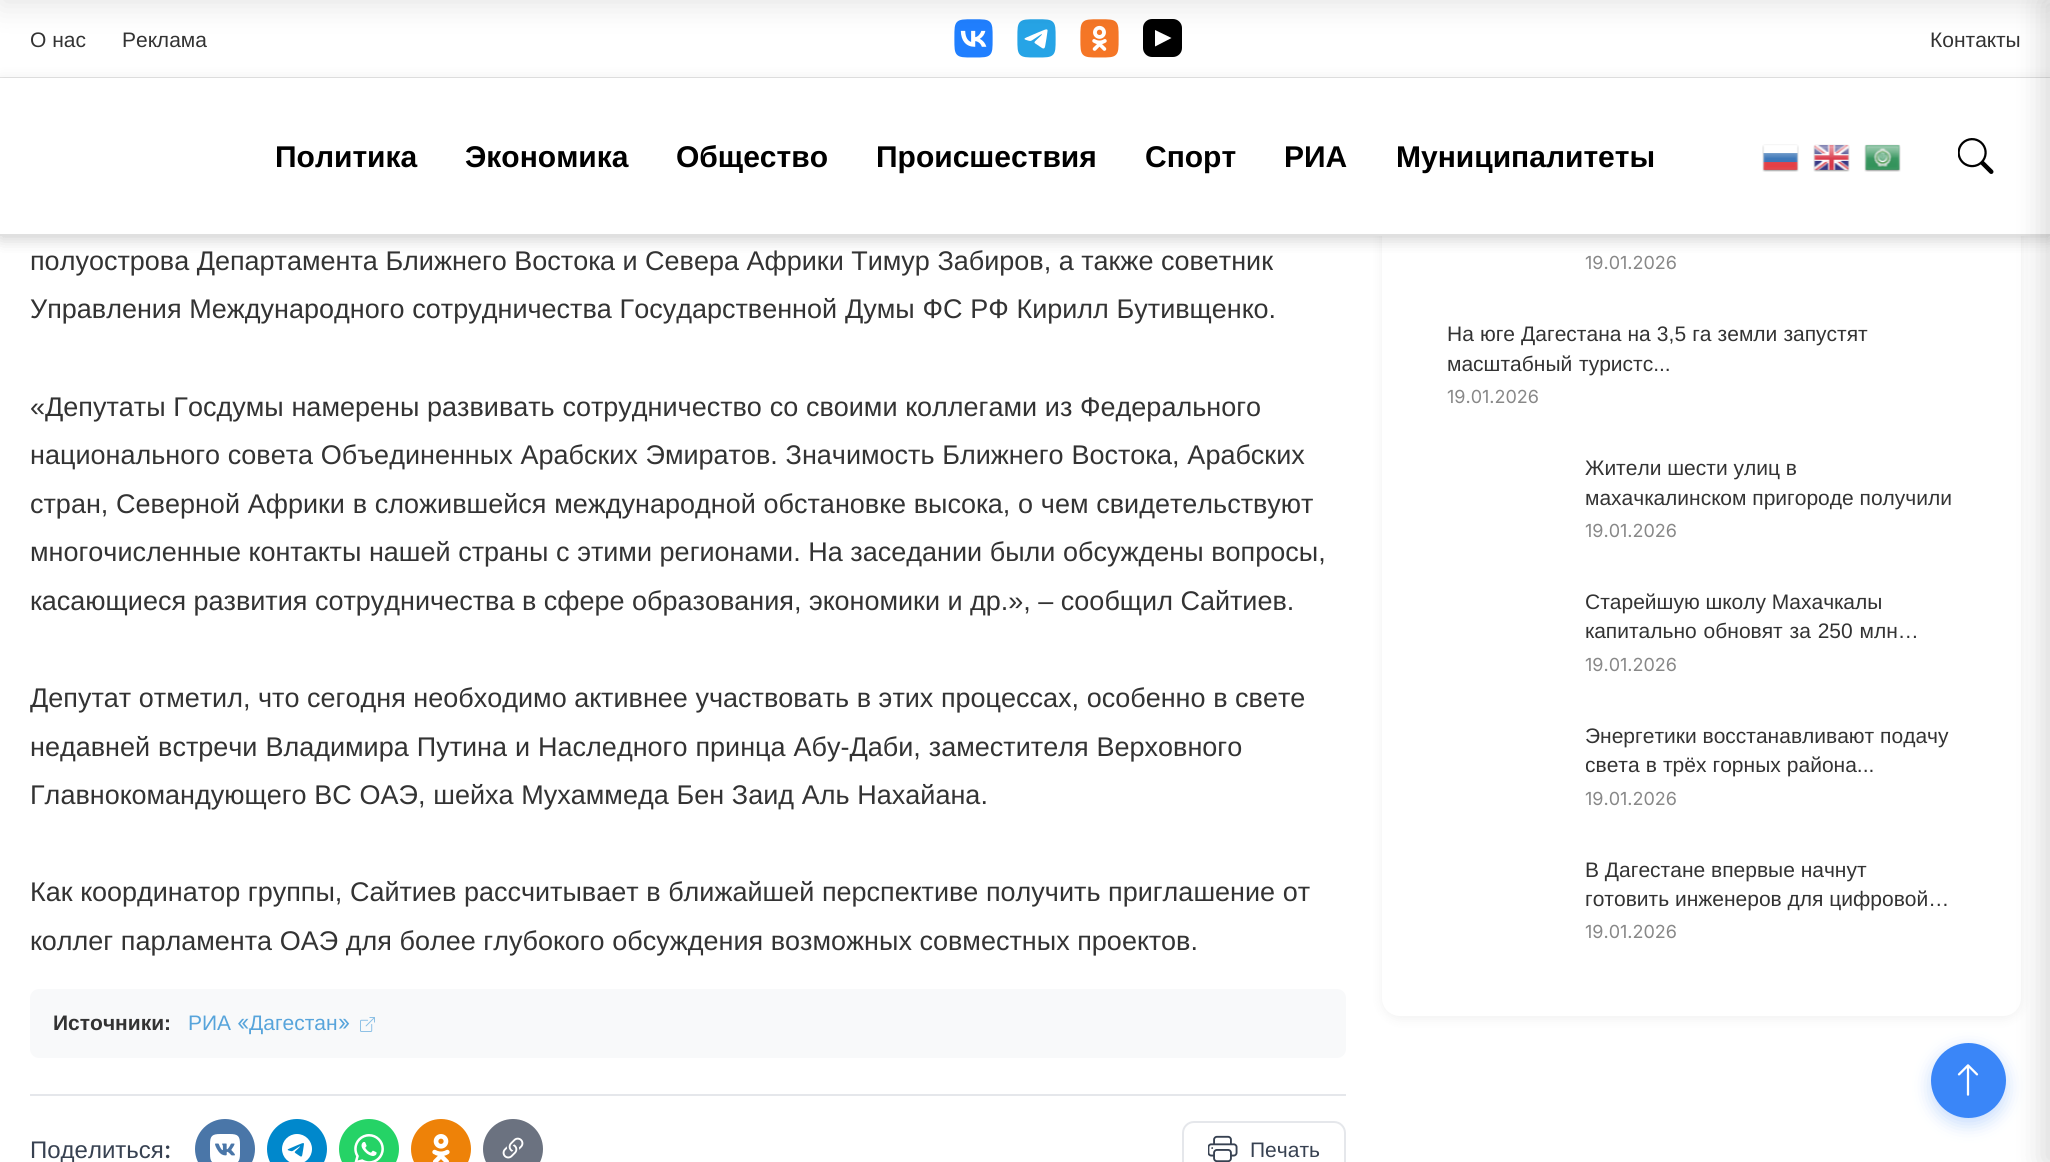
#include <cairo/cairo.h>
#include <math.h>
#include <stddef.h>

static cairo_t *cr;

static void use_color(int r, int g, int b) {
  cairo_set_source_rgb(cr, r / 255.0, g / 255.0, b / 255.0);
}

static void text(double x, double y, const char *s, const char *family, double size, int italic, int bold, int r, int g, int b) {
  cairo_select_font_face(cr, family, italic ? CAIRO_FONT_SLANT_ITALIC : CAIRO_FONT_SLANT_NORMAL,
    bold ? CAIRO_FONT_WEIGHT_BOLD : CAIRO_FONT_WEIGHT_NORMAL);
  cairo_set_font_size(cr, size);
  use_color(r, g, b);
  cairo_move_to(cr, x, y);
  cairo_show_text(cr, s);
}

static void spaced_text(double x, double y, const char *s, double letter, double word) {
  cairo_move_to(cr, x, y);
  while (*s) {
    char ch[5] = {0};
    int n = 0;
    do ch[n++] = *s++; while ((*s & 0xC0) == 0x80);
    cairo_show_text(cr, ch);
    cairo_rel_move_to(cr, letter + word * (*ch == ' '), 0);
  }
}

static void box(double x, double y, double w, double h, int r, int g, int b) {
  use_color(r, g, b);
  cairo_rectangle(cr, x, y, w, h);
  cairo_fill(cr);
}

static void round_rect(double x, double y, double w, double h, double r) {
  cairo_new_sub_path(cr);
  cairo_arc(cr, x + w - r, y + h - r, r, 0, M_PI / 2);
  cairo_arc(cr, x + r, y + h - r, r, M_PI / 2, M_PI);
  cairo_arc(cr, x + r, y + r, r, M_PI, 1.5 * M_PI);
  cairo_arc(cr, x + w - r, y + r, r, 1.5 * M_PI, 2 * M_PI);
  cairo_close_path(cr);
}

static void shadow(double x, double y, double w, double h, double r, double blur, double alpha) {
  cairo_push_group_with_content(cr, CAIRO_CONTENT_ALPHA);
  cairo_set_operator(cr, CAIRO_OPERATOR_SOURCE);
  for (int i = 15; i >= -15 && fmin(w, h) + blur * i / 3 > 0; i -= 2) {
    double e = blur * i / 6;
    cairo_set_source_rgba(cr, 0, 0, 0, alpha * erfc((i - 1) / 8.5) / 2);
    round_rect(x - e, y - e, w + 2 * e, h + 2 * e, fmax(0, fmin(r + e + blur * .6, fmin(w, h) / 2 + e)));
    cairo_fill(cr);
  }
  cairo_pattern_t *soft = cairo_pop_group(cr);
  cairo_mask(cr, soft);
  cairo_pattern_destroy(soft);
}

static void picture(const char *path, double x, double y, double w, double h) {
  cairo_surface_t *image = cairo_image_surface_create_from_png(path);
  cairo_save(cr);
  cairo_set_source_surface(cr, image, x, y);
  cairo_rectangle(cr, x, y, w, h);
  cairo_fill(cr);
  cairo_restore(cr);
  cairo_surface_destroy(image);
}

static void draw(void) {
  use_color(255, 255, 255);
  cairo_paint(cr);
  use_color(0, 0, 0);
  shadow(1382, 45, 639, 974, 18, 6, 0.06);
  use_color(255, 255, 255);
  round_rect(1382, 42, 639, 974, 18);
  cairo_fill(cr);
  use_color(0, 0, 0);
  shadow(0, 3, 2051, 236, 0, 7.5, 0.1);
  box(0, 0, 2050, 77, 255, 255, 255);
  picture("img_01.png", 954, 19, 39, 39);
  picture("img_02.png", 1017, 19, 39, 39);
  picture("img_03.png", 1080, 19, 39, 39);
  use_color(0, 0, 0);
  round_rect(1143, 19, 39, 38, 9);
  cairo_fill(cr);
  use_color(255, 255, 255);
  cairo_new_path(cr);
  cairo_move_to(cr, 1155, 30);
  cairo_line_to(cr, 1155, 46.5);
  cairo_line_to(cr, 1171.5, 38);
  cairo_close_path(cr);
  cairo_fill(cr);
  use_color(0, 0, 0);
  shadow(0, -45, 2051, 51, 0, 15, 0.1);
  box(0, 77, 2050, 1, 229, 229, 229);
  use_color(0, 0, 0);
  shadow(0, 81, 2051, 158, 0, 7.5, 0.1);
  box(0, 78, 2050, 156, 255, 255, 255);
  box(0, 234, 2050, 2, 224, 224, 224);
  use_color(0, 0, 0);
  shadow(2043, 0, 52, 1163, 0, 15, 0.15);
  picture("img_04.png", 1762, 144, 37, 28);
  picture("img_05.png", 1813, 144, 37, 28);
  picture("img_06.png", 1864, 144, 37, 28);
  picture("img_07.png", 1958, 138, 36, 36);
  use_color(248, 249, 250);
  round_rect(30, 989, 1316, 69, 9);
  cairo_fill(cr);
  picture("img_08.png", 360, 1017, 15, 15);
  box(30, 1094, 1316, 2, 229, 231, 235);
  use_color(74, 118, 168);
  cairo_arc(cr, 225, 1149, 30, 0, 2 * M_PI);
  cairo_fill(cr);
  picture("img_09.png", 210, 1134, 30, 28);
  use_color(0, 136, 204);
  cairo_arc(cr, 297, 1149, 30, 0, 2 * M_PI);
  cairo_fill(cr);
  picture("img_10.png", 282, 1134, 30, 28);
  use_color(37, 211, 102);
  cairo_arc(cr, 369, 1149, 30, 0, 2 * M_PI);
  cairo_fill(cr);
  picture("img_11.png", 354, 1134, 30, 28);
  use_color(238, 130, 8);
  cairo_arc(cr, 441, 1149, 30, 0, 2 * M_PI);
  cairo_fill(cr);
  picture("img_12.png", 432, 1134, 18, 28);
  use_color(107, 114, 128);
  cairo_arc(cr, 513, 1149, 30, 0, 2 * M_PI);
  cairo_fill(cr);
  picture("img_13.png", 502, 1137, 22, 22);
  round_rect(1183, 1122, 162, 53, 11);
  use_color(229, 231, 235);
  cairo_stroke(cr);
  picture("img_14.png", 1208, 1135, 30, 27);
  use_color(58, 134, 248);
  shadow(1931, 1049, 75, 75, 37.5, 9, 0.3);
  use_color(58, 134, 248);
  cairo_arc(cr, 1968.5, 1080.5, 37.5, 0, 2 * M_PI);
  cairo_fill(cr);
  picture("img_15.png", 1957, 1064, 22, 32);
  text(30, 47, "О нас", "Liberation Sans", 21, 0, 0, 51, 51, 51);
  text(122, 47, "Реклама", "Liberation Sans", 21, 0, 0, 51, 51, 51);
  text(1930, 47, "Контакты", "Liberation Sans", 21, 0, 0, 51, 51, 51);
  text(275, 167, "Политика", "Liberation Sans", 30, 0, 1, 0, 0, 0);
  text(465, 167, "Экономика", "Liberation Sans", 30, 0, 1, 0, 0, 0);
  text(676, 167, "Общество", "Liberation Sans", 30, 0, 1, 0, 0, 0);
  text(876, 167, "Происшествия", "Liberation Sans", 30, 0, 1, 0, 0, 0);
  text(1145, 167, "Спорт", "Liberation Sans", 30, 0, 1, 0, 0, 0);
  text(1284, 167, "РИА", "Liberation Sans", 30, 0, 1, 0, 0, 0);
  text(1396, 167, "Муниципалитеты", "Liberation Sans", 30, 0, 1, 0, 0, 0);
  text(30, 270, "полуострова Департамента Ближнего Востока и Севера Африки Тимур Забиров, а также советник", "Liberation Sans", 27, 0, 0, 51, 51, 51);
  spaced_text(30, 318, "Управления Международного сотрудничества Государственной Думы ФС РФ Кирилл Бутивщенко.", 0, 0.25);
  spaced_text(30, 416, "«Депутаты Госдумы намерены развивать сотрудничество со своими коллегами из Федерального", 0, 0.25);
  spaced_text(30, 464, "национального совета Объединенных Арабских Эмиратов. Значимость Ближнего Востока, Арабских", 0, 0.25);
  spaced_text(30, 513, "стран, Северной Африки в сложившейся международной обстановке высока, о чем свидетельствуют", 0, 0.25);
  spaced_text(30, 561, "многочисленные контакты нашей страны с этими регионами. На заседании были обсуждены вопросы,", 0, 0.1);
  text(30, 610, "касающиеся развития сотрудничества в сфере образования, экономики и др.», – сообщил Сайтиев.", "Liberation Sans", 27, 0, 0, 51, 51, 51);
  spaced_text(30, 707, "Депутат отметил, что сегодня необходимо активнее участвовать в этих процессах, особенно в свете", 0, 0.1);
  spaced_text(30, 756, "недавней встречи Владимира Путина и Наследного принца Абу-Даби, заместителя Верховного", 0, 0.5);
  spaced_text(30, 804, "Главнокомандующего ВС ОАЭ, шейха Мухаммеда Бен Заид Аль Нахайана.", 0, 0.25);
  spaced_text(30, 901, "Как координатор группы, Сайтиев рассчитывает в ближайшей перспективе получить приглашение от", 0, 0.1);
  spaced_text(30, 950, "коллег парламента ОАЭ для более глубокого обсуждения возможных совместных проектов.", 0, 0.1);
  text(53, 1030, "Источники:", "Liberation Sans", 21, 0, 1, 51, 51, 51);
  text(188, 1030, "РИА", "Liberation Sans", 21, 0, 0, 87, 164, 219);
  text(237, 1030, "«", "Inter", 21, 0, 0, 87, 164, 219);
  text(249, 1030, "Дагестан", "Liberation Sans", 21, 0, 0, 87, 164, 219);
  text(338, 1030, "»", "Inter", 21, 0, 0, 87, 164, 219);
  text(30, 1158, "Поделиться", "Liberation Sans", 24, 0, 0, 55, 65, 81);
  text(164, 1158, ":", "Inter Medium", 24, 0, 0, 55, 65, 81);
  text(1250, 1157, "Печать", "Liberation Sans", 21, 0, 0, 55, 65, 81);
  text(1585, 269, "19.01.2026", "Inter", 18, 0, 0, 136, 136, 136);
  cairo_select_font_face(cr, "Liberation Sans", CAIRO_FONT_SLANT_NORMAL, CAIRO_FONT_WEIGHT_NORMAL);
  cairo_set_font_size(cr, 21);
  use_color(51, 51, 51);
  spaced_text(1447, 341, "На юге Дагестана на 3,5 га земли запустят", 0, 0.25);
  spaced_text(1447, 371, "масштабный туристс...", 0, 1);
  text(1447, 403, "19.01.2026", "Inter", 18, 0, 0, 136, 136, 136);
  text(1585, 475, "Жители шести улиц в", "Liberation Sans", 21, 0, 0, 51, 51, 51);
  text(1585, 505, "махачкалинском пригороде получили", "Liberation Sans", 21, 0, 0, 51, 51, 51);
  text(1585, 537, "19.01.2026", "Inter", 18, 0, 0, 136, 136, 136);
  text(1585, 609, "Старейшую школу Махачкалы", "Liberation Sans", 21, 0, 0, 51, 51, 51);
  spaced_text(1585, 638, "капитально обновят за 250 млн…", 0, 1);
  text(1585, 671, "19.01.2026", "Inter", 18, 0, 0, 136, 136, 136);
  text(1585, 743, "Энергетики восстанавливают подачу", "Liberation Sans", 21, 0, 0, 51, 51, 51);
  cairo_save(cr);
  cairo_rectangle(cr, 1586, 720, 369, 59);
  cairo_clip(cr);
  spaced_text(1585, 772, "света в трёх горных района...", 0, 0.25);
  cairo_restore(cr);
  text(1585, 805, "19.01.2026", "Inter", 18, 0, 0, 136, 136, 136);
  text(1585, 877, "В Дагестане впервые начнут", "Liberation Sans", 21, 0, 0, 51, 51, 51);
  text(1585, 906, "готовить инженеров для цифровой…", "Liberation Sans", 21, 0, 0, 51, 51, 51);
  text(1585, 938, "19.01.2026", "Inter", 18, 0, 0, 136, 136, 136);
}

int main(void) {
  cairo_surface_t *surface = cairo_image_surface_create(CAIRO_FORMAT_RGB24, 2050, 1162);
  cr = cairo_create(surface);
  cairo_font_options_t *options = cairo_font_options_create();
  cairo_font_options_set_hint_metrics(options, CAIRO_HINT_METRICS_OFF);
  cairo_font_options_set_hint_style(options, CAIRO_HINT_STYLE_NONE);
  cairo_set_font_options(cr, options);
  cairo_set_miter_limit(cr, 4);
  draw();
  cairo_surface_write_to_png(surface, "out.png");
  cairo_font_options_destroy(options);
  cairo_destroy(cr);
  cairo_surface_destroy(surface);
  return 0;
}
